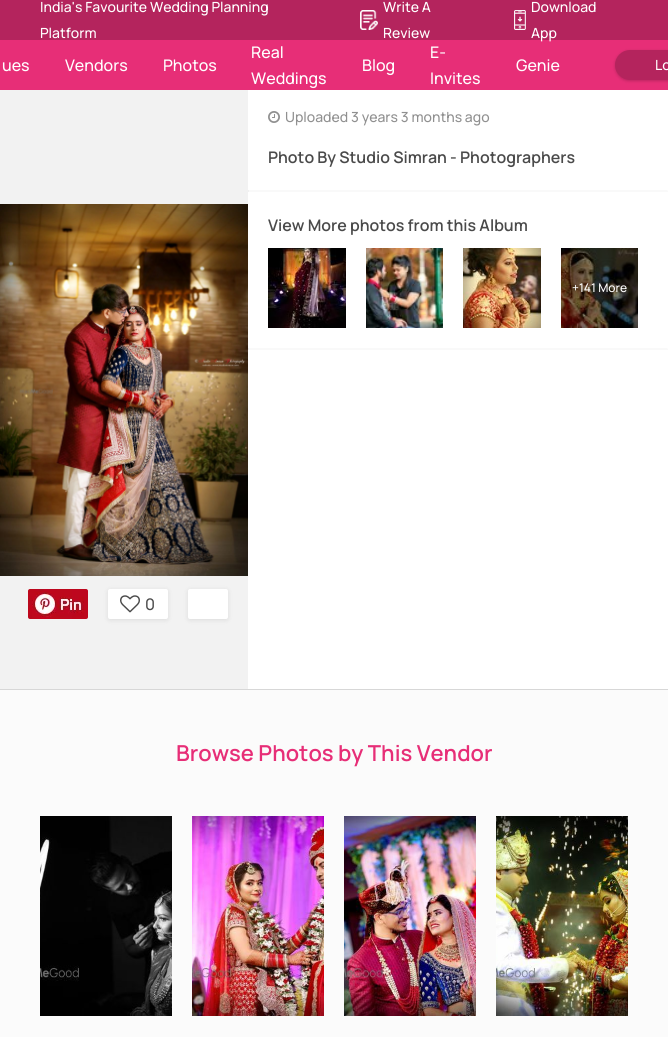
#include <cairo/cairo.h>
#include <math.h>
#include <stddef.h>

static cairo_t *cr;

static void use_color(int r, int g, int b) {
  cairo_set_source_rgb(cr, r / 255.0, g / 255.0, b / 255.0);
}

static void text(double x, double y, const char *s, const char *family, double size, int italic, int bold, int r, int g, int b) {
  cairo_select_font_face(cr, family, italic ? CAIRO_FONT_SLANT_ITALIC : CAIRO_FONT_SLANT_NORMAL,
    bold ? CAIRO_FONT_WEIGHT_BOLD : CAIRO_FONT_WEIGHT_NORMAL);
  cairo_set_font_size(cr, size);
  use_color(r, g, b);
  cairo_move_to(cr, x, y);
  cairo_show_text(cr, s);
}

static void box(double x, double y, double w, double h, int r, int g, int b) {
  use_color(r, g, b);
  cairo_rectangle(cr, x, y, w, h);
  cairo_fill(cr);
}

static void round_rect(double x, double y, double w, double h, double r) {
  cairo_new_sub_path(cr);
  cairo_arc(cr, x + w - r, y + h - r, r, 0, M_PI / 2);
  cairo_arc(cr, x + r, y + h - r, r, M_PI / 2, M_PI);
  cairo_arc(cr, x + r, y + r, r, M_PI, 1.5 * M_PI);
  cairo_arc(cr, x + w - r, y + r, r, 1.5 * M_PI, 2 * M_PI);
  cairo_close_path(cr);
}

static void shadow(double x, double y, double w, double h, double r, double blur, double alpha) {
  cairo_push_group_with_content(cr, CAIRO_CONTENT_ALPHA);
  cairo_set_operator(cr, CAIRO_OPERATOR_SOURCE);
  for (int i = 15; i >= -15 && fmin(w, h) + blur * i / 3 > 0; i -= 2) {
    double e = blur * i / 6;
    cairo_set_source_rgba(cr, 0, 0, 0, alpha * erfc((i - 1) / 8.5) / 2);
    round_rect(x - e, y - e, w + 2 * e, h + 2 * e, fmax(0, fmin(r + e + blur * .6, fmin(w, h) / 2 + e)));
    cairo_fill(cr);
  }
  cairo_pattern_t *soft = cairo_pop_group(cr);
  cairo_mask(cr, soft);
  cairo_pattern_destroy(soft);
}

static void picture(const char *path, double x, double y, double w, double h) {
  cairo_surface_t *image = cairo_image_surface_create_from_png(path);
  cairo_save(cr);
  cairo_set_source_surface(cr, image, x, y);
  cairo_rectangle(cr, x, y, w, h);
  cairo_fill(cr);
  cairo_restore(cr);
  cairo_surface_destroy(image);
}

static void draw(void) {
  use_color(251, 251, 251);
  cairo_paint(cr);
  box(0, 0, 668, 40, 180, 36, 93);
  picture("img_01.png", 360, 10, 18, 20);
  picture("img_02.png", 514, 10, 12, 20);
  box(0, 40, 668, 50, 231, 46, 119);
  use_color(0, 0, 0);
  shadow(615, 51, 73, 30, 15, 1.5, 0.2);
  use_color(180, 36, 93);
  round_rect(615, 50, 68, 30, 15);
  cairo_fill(cr);
  box(0, 689, 668, 1, 215, 215, 215);
  box(248, 90, 420, 599, 255, 255, 255);
  picture("img_03.png", 268, 111, 12, 12);
  box(248, 190, 420, 1, 249, 249, 249);
  box(667, 190, 1, 2, 252, 252, 252);
  box(248, 191, 420, 1, 249, 249, 249);
  box(248, 190, 1, 2, 241, 241, 241);
  picture("img_04.png", 268, 248, 78, 80);
  picture("img_05.png", 366, 248, 77, 80);
  picture("img_06.png", 463, 248, 78, 80);
  picture("img_07.png", 561, 248, 77, 80);
  box(248, 348, 420, 1, 249, 249, 249);
  box(667, 348, 1, 2, 252, 252, 252);
  box(248, 349, 420, 1, 249, 249, 249);
  box(248, 348, 1, 2, 241, 241, 241);
  box(0, 90, 248, 599, 242, 242, 242);
  picture("img_08.png", 0, 204, 248, 372);
  picture("img_09.png", 28, 589, 60, 30);
  use_color(0, 0, 0);
  shadow(108, 590, 60, 30, 2, 2.5, 0.1);
  use_color(255, 255, 255);
  round_rect(108, 589, 60, 30, 2);
  cairo_fill(cr);
  picture("img_10.png", 120, 595, 20, 18);
  use_color(0, 0, 0);
  shadow(188, 590, 40, 30, 2, 2.5, 0.1);
  use_color(255, 255, 255);
  round_rect(188, 589, 40, 30, 2);
  cairo_fill(cr);
  picture("img_11.png", 40, 816, 132, 200);
  picture("img_12.png", 192, 816, 132, 200);
  picture("img_13.png", 344, 816, 132, 200);
  picture("img_14.png", 496, 816, 132, 200);
  text(40, 12, "India's Favourite Wedding Planning", "Manrope Medium", 14, 0, 0, 255, 255, 255);
  text(40, 38, "Platform", "Manrope Medium", 14, 0, 0, 255, 255, 255);
  text(383, 12, "Write A", "Manrope Medium", 14, 0, 0, 255, 255, 255);
  text(383, 38, "Review", "Manrope Medium", 14, 0, 0, 255, 255, 255);
  text(531, 12, "Download", "Manrope Medium", 14, 0, 0, 255, 255, 255);
  text(531, 38, "App", "Manrope Medium", 14, 0, 0, 255, 255, 255);
  text(2, 71, "ues", "Manrope Medium", 16, 0, 0, 255, 255, 255);
  text(65, 71, "Vendors", "Manrope Medium", 16, 0, 0, 255, 255, 255);
  text(163, 71, "Photos", "Manrope Medium", 16, 0, 0, 255, 255, 255);
  text(251, 58, "Real", "Manrope Medium", 16, 0, 0, 255, 255, 255);
  text(251, 84, "Weddings", "Manrope Medium", 16, 0, 0, 255, 255, 255);
  text(362, 71, "Blog", "Manrope Medium", 16, 0, 0, 255, 255, 255);
  text(430, 58, "E-", "Manrope Medium", 16, 0, 0, 255, 255, 255);
  text(430, 84, "Invites", "Manrope Medium", 16, 0, 0, 255, 255, 255);
  text(516, 71, "Genie", "Manrope Medium", 16, 0, 0, 255, 255, 255);
  text(655, 70, "Lo", "Manrope Medium", 14, 0, 0, 255, 255, 255);
  text(285, 122, "Uploaded 3 years 3 months ago", "Manrope Medium", 14, 0, 0, 144, 144, 144);
  text(268, 163, "Photo By Studio Simran - Photographers", "Manrope SemiBold", 16, 0, 0, 74, 74, 74);
  text(268, 231, "View More photos from this Album", "Manrope SemiBold", 16, 0, 0, 74, 74, 74);
  text(572, 292, "+141 More", "Manrope Medium", 12, 0, 0, 255, 255, 255);
  text(145, 610, "0", "Manrope Medium", 16, 0, 0, 74, 74, 74);
  text(176, 761, "Browse Photos by This Vendor", "Manrope SemiBold", 22, 0, 0, 231, 46, 119);
}

int main(void) {
  cairo_surface_t *surface = cairo_image_surface_create(CAIRO_FORMAT_RGB24, 668, 1037);
  cr = cairo_create(surface);
  cairo_font_options_t *options = cairo_font_options_create();
  cairo_font_options_set_hint_metrics(options, CAIRO_HINT_METRICS_OFF);
  cairo_font_options_set_hint_style(options, CAIRO_HINT_STYLE_NONE);
  cairo_set_font_options(cr, options);
  cairo_set_miter_limit(cr, 4);
  draw();
  cairo_surface_write_to_png(surface, "out.png");
  cairo_font_options_destroy(options);
  cairo_destroy(cr);
  cairo_surface_destroy(surface);
  return 0;
}
